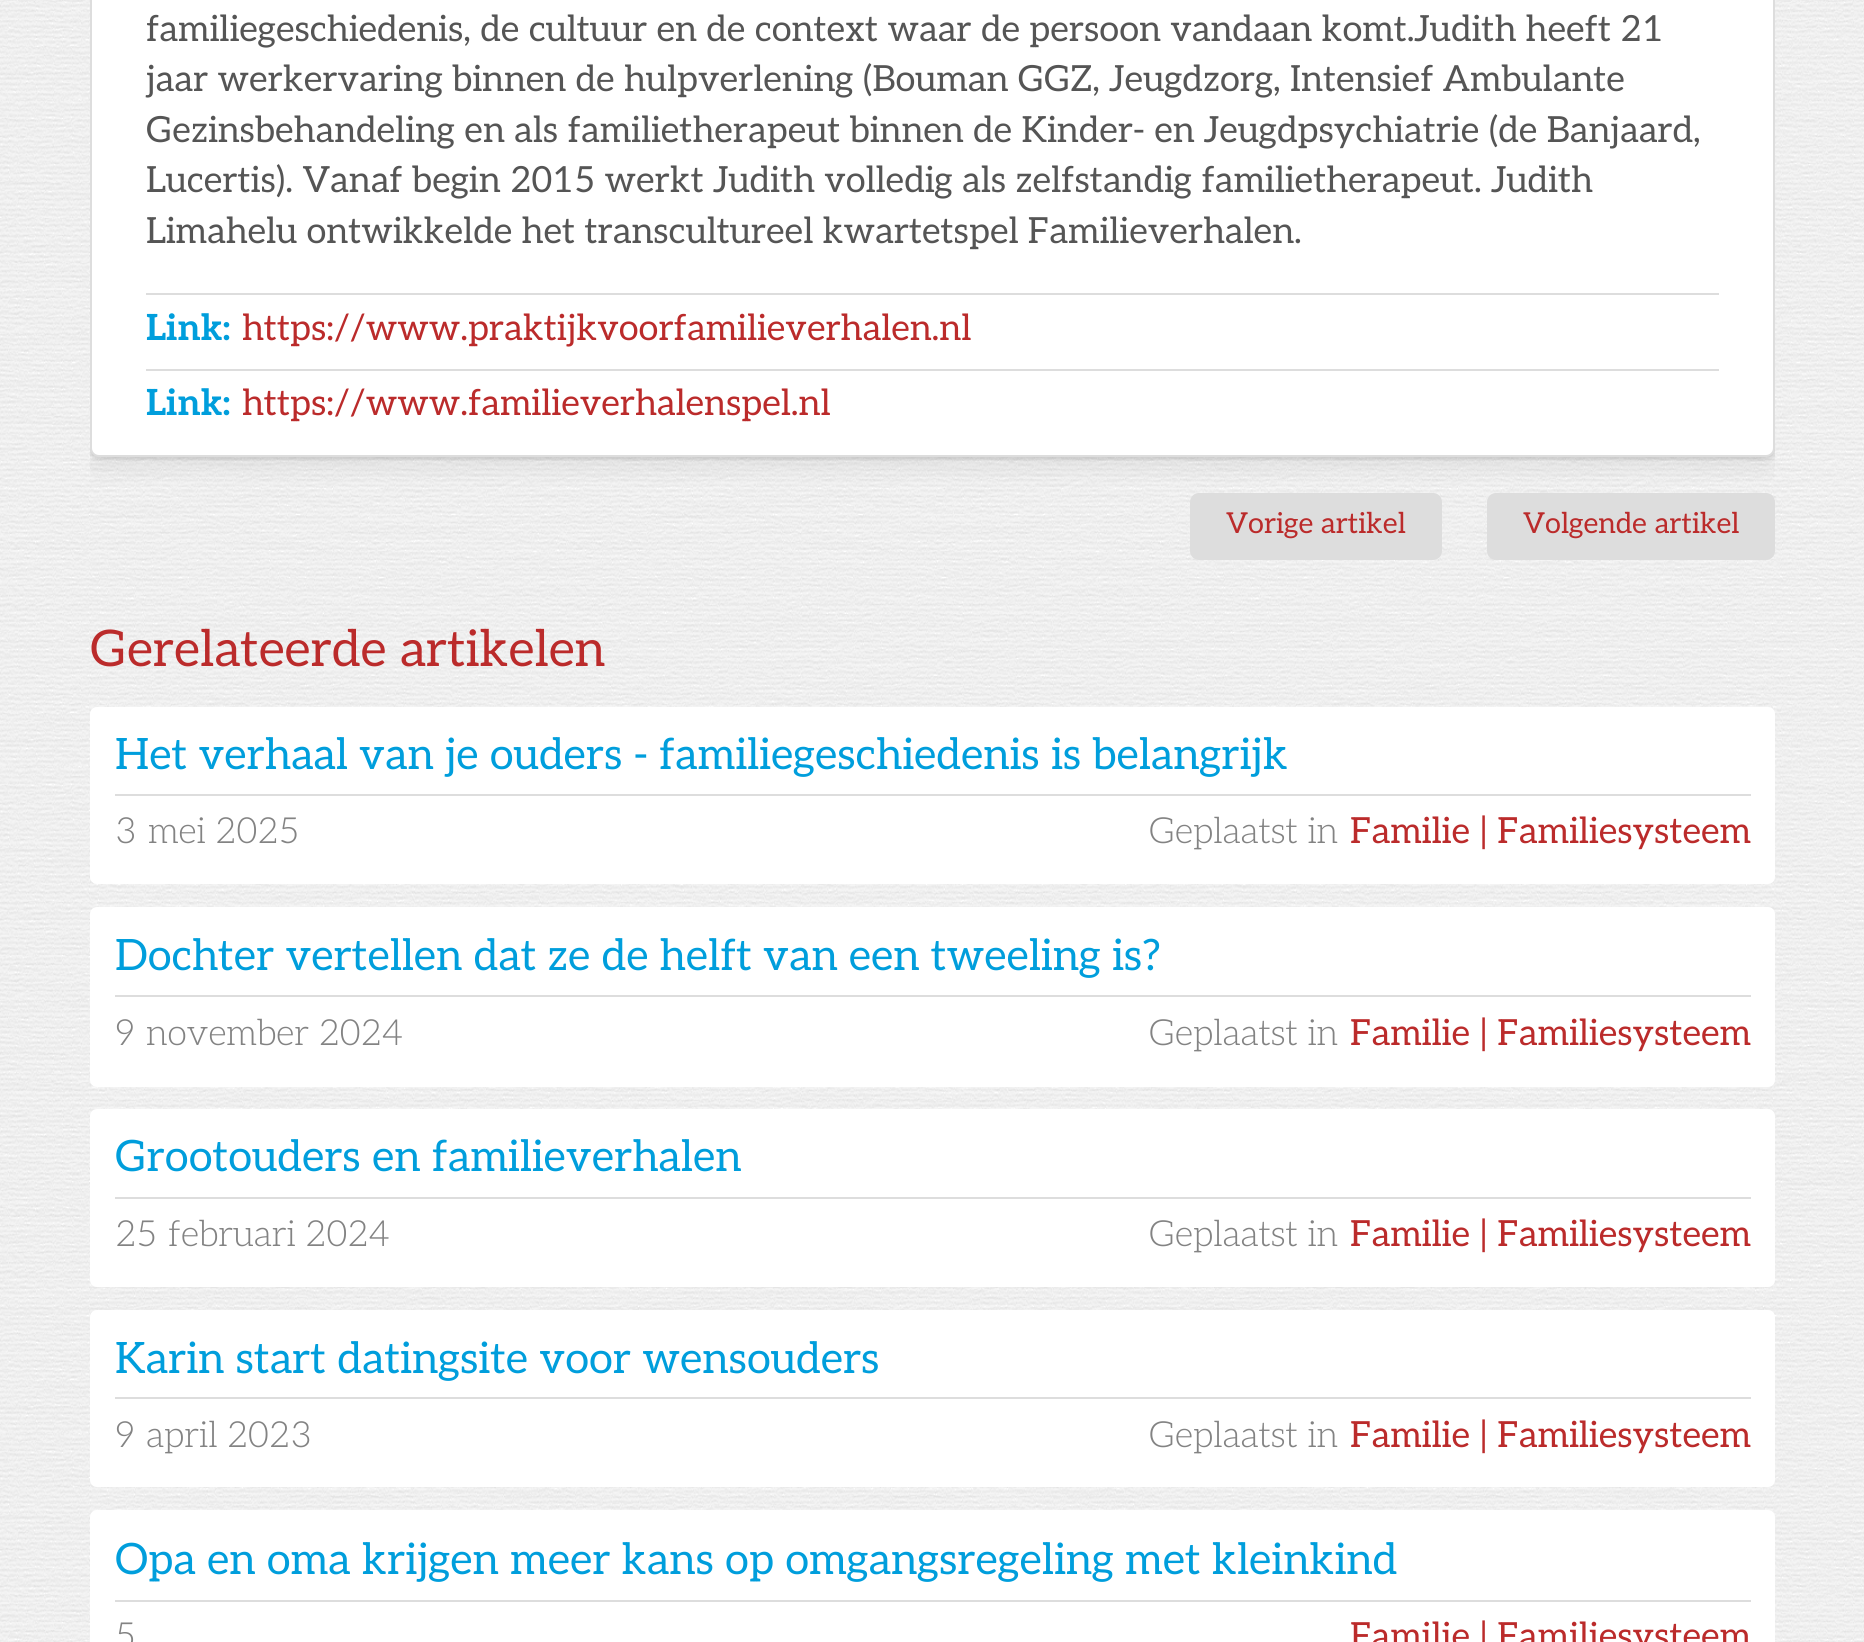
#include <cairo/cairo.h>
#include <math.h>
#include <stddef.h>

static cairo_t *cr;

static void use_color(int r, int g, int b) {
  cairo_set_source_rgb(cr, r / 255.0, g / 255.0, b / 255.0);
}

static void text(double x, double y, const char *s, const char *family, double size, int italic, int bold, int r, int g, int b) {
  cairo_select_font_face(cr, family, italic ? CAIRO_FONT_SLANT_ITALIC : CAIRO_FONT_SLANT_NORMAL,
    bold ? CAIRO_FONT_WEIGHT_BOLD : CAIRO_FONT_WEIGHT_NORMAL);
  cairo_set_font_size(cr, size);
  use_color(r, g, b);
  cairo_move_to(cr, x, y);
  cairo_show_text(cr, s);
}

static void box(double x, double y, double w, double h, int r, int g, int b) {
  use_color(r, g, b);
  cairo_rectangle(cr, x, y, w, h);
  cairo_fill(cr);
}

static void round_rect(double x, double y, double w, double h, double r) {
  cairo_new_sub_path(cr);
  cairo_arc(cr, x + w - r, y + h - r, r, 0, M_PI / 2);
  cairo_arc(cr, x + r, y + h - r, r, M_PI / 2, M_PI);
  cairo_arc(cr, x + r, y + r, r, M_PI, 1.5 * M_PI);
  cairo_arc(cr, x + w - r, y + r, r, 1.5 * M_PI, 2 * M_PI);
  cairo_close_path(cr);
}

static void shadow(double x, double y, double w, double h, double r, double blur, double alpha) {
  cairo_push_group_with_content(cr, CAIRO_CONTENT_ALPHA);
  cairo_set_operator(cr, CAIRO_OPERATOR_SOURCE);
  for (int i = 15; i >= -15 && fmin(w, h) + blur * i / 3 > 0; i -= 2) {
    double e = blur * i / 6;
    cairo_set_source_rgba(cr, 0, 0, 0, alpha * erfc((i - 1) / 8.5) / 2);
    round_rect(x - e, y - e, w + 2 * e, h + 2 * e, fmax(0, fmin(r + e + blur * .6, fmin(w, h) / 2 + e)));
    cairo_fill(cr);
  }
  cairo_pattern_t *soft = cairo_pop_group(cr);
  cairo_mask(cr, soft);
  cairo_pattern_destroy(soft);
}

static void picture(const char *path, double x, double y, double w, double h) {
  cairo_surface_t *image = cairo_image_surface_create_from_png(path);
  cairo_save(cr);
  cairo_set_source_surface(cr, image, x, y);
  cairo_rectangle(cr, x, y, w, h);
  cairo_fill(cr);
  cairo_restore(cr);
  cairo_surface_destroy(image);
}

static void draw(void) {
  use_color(255, 255, 255);
  cairo_paint(cr);
  picture("img_01.png", 0, 0, 1864, 1642);
  cairo_save(cr);
  cairo_rectangle(cr, 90, 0, 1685, 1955);
  cairo_clip(cr);
  use_color(0, 0, 0);
  shadow(90, -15, 1685, 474, 9, 2, 0.12);
  cairo_restore(cr);
  use_color(221, 221, 221);
  round_rect(1190, 493, 252, 67, 9);
  cairo_fill(cr);
  round_rect(1487, 493, 288, 67, 9);
  cairo_fill(cr);
  cairo_save(cr);
  cairo_rectangle(cr, 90, 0, 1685, 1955);
  cairo_clip(cr);
  use_color(0, 0, 0);
  shadow(90, -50, 1685, 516, 9, 13.5, 0.08);
  cairo_restore(cr);
  use_color(255, 255, 255);
  round_rect(91, -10, 1683, 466, 8);
  cairo_fill_preserve(cr);
  use_color(221, 221, 221);
  cairo_stroke(cr);
  box(146, 293, 1573, 2, 221, 221, 221);
  box(146, 369, 1573, 2, 221, 221, 221);
  use_color(255, 255, 255);
  round_rect(90, 707, 1685, 177, 7);
  cairo_fill(cr);
  box(115, 794, 1636, 2, 221, 221, 221);
  use_color(255, 255, 255);
  round_rect(90, 907, 1685, 180, 7);
  cairo_fill(cr);
  box(115, 995, 1636, 2, 221, 221, 221);
  use_color(255, 255, 255);
  round_rect(90, 1109, 1685, 178, 7);
  cairo_fill(cr);
  box(115, 1197, 1636, 2, 221, 221, 221);
  use_color(255, 255, 255);
  round_rect(90, 1310, 1685, 177, 7);
  cairo_fill(cr);
  box(115, 1397, 1636, 2, 221, 221, 221);
  use_color(255, 255, 255);
  round_rect(90, 1510, 1685, 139, 7);
  cairo_fill(cr);
  box(115, 1600, 1636, 2, 221, 221, 221);
  text(146, 41, "familiegeschiedenis, de cultuur en de context waar de persoon vandaan komt.Judith heeft 21", "Aleo", 36, 0, 0, 85, 85, 85);
  text(146, 91, "jaar werkervaring binnen de hulpverlening (Bouman GGZ, Jeugdzorg, Intensief Ambulante", "Aleo", 36, 0, 0, 85, 85, 85);
  text(146, 142, "Gezinsbehandeling en als familietherapeut binnen de Kinder- en Jeugdpsychiatrie (de Banjaard,", "Aleo", 36, 0, 0, 85, 85, 85);
  text(146, 192, "Lucertis). Vanaf begin 2015 werkt Judith volledig als zelfstandig familietherapeut. Judith", "Aleo", 36, 0, 0, 85, 85, 85);
  text(146, 243, "Limahelu ontwikkelde het transcultureel kwartetspel Familieverhalen.", "Aleo", 36, 0, 0, 85, 85, 85);
  text(146, 340, "Link:", "Aleo", 36, 0, 1, 0, 158, 220);
  text(242, 340, "https://www.praktijkvoorfamilieverhalen.nl", "Aleo", 36, 0, 0, 187, 43, 43);
  text(146, 415, "Link:", "Aleo", 36, 0, 1, 0, 158, 220);
  text(242, 415, "https://www.familieverhalenspel.nl", "Aleo", 36, 0, 0, 187, 43, 43);
  text(1226, 533, "Vorige artikel", "Aleo", 28.75, 0, 0, 187, 43, 43);
  text(1523, 533, "Volgende artikel", "Aleo", 28.75, 0, 0, 187, 43, 43);
  text(90, 666, "Gerelateerde artikelen", "Aleo", 50.4, 0, 0, 187, 43, 43);
  text(115, 769, "Het verhaal van je ouders - familiegeschiedenis is belangrijk", "Aleo", 43.2, 0, 0, 0, 158, 220);
  text(115, 843, "3", "Aleo Light", 36, 0, 0, 131, 131, 131);
  text(148, 843, "mei 2025", "Aleo Light", 36, 0, 0, 131, 131, 131);
  text(1149, 843, "Geplaatst in", "Aleo Light", 36, 0, 0, 131, 131, 131);
  text(1350, 843, "Familie | Familiesysteem", "Aleo", 36, 0, 0, 187, 43, 43);
  text(115, 970, "Dochter vertellen dat ze de helft van een tweeling is?", "Aleo", 43.2, 0, 0, 0, 158, 220);
  text(115, 1045, "9", "Aleo Light", 36, 0, 0, 131, 131, 131);
  text(146, 1045, "november 2024", "Aleo Light", 36, 0, 0, 131, 131, 131);
  text(1149, 1045, "Geplaatst in", "Aleo Light", 36, 0, 0, 131, 131, 131);
  text(1350, 1045, "Familie | Familiesysteem", "Aleo", 36, 0, 0, 187, 43, 43);
  text(115, 1171, "Grootouders en familieverhalen", "Aleo", 43.2, 0, 0, 0, 158, 220);
  text(115, 1246, "25", "Aleo Light", 36, 0, 0, 131, 131, 131);
  text(168, 1246, "februari 2024", "Aleo Light", 36, 0, 0, 131, 131, 131);
  text(1149, 1246, "Geplaatst in", "Aleo Light", 36, 0, 0, 131, 131, 131);
  text(1350, 1246, "Familie | Familiesysteem", "Aleo", 36, 0, 0, 187, 43, 43);
  text(115, 1373, "Karin start datingsite voor wensouders", "Aleo", 43.2, 0, 0, 0, 158, 220);
  text(115, 1447, "9", "Aleo Light", 36, 0, 0, 131, 131, 131);
  text(146, 1447, "april 2023", "Aleo Light", 36, 0, 0, 131, 131, 131);
  text(1149, 1447, "Geplaatst in", "Aleo Light", 36, 0, 0, 131, 131, 131);
  text(1350, 1447, "Familie | Familiesysteem", "Aleo", 36, 0, 0, 187, 43, 43);
  text(115, 1574, "Opa en oma krijgen meer kans op omgangsregeling met kleinkind", "Aleo", 43.2, 0, 0, 0, 158, 220);
  text(115, 1648, "5", "Aleo Light", 36, 0, 0, 131, 131, 131);
  text(1350, 1648, "Familie | Familiesysteem", "Aleo", 36, 0, 0, 187, 43, 43);
}

int main(void) {
  cairo_surface_t *surface = cairo_image_surface_create(CAIRO_FORMAT_RGB24, 1864, 1642);
  cr = cairo_create(surface);
  cairo_font_options_t *options = cairo_font_options_create();
  cairo_font_options_set_hint_metrics(options, CAIRO_HINT_METRICS_OFF);
  cairo_font_options_set_hint_style(options, CAIRO_HINT_STYLE_NONE);
  cairo_set_font_options(cr, options);
  cairo_set_miter_limit(cr, 4);
  draw();
  cairo_surface_write_to_png(surface, "out.png");
  cairo_font_options_destroy(options);
  cairo_destroy(cr);
  cairo_surface_destroy(surface);
  return 0;
}
